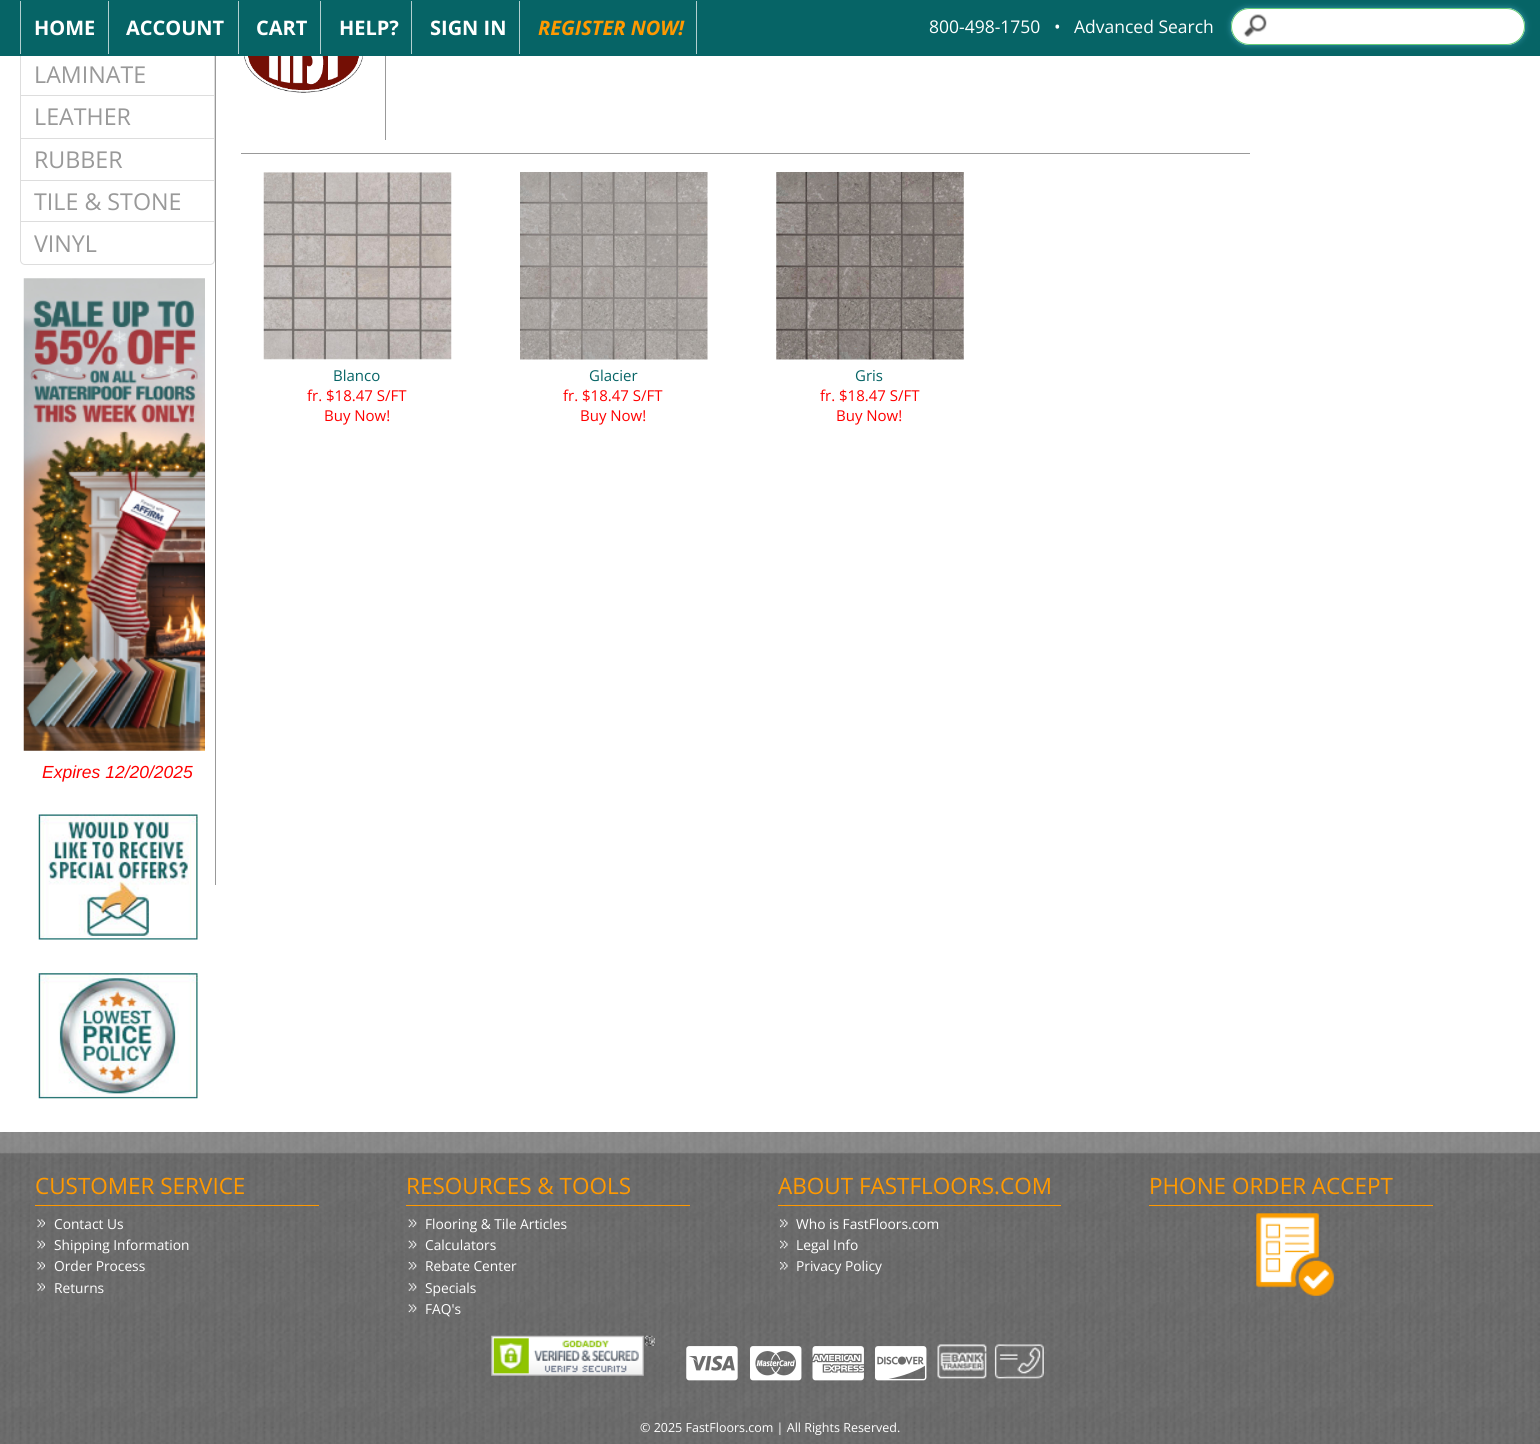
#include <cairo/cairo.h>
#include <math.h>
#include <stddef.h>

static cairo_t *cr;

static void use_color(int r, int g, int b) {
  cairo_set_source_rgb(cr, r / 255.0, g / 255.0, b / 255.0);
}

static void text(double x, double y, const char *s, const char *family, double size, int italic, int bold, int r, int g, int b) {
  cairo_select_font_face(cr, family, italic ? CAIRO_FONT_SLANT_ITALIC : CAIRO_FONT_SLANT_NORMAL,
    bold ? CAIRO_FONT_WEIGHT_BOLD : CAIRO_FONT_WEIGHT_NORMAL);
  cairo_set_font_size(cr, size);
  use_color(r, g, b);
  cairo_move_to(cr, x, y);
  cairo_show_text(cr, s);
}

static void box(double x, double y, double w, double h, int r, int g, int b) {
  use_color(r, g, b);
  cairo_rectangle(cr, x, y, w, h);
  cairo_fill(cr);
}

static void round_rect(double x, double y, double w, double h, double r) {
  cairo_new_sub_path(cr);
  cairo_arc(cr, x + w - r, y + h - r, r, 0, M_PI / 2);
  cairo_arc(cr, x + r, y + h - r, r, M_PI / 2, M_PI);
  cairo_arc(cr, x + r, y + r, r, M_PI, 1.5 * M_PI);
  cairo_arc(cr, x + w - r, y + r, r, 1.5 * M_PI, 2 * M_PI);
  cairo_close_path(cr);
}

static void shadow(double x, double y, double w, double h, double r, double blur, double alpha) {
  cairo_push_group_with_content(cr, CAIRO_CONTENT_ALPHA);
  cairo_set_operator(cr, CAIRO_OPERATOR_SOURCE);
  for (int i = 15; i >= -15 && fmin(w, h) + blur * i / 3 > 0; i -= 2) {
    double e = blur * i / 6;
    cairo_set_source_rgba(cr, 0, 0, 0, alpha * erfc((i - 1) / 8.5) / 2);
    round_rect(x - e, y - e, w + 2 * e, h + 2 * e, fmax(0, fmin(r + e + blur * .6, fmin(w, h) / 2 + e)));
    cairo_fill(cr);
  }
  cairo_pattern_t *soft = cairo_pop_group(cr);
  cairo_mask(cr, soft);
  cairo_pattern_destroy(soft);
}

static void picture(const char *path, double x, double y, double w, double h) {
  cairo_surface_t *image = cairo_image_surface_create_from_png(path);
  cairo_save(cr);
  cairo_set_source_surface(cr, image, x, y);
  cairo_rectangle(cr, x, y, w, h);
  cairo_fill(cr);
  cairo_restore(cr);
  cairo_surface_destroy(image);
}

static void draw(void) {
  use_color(255, 255, 255);
  cairo_paint(cr);
  cairo_rectangle(cr, 20.5, 54.5, 194, 41);
  use_color(221, 221, 221);
  cairo_set_line_width(cr, 1);
  cairo_stroke(cr);
  box(0, 0, 1540, 56, 6, 100, 102);
  box(108, 1, 1, 53, 178, 207, 208);
  box(20, 1, 1, 53, 178, 207, 208);
  box(238, 1, 1, 53, 178, 207, 208);
  box(320, 1, 1, 53, 178, 207, 208);
  box(411, 1, 1, 53, 178, 207, 208);
  box(519, 1, 1, 53, 178, 207, 208);
  box(696, 1, 1, 53, 178, 207, 208);
  use_color(109, 207, 246);
  shadow(1231, 8, 294, 37, 18.5, 3, 0.5);
  use_color(255, 255, 255);
  round_rect(1231, 8, 294, 37, 18.5);
  cairo_fill(cr);
  picture("img_01.png", 1243, 14, 24, 23);
  round_rect(1231.5, 8.5, 293, 36, 18);
  use_color(102, 204, 117);
  cairo_stroke(cr);
  cairo_rectangle(cr, 20.5, 95.5, 194, 43);
  use_color(221, 221, 221);
  cairo_stroke(cr);
  cairo_rectangle(cr, 20.5, 138.5, 194, 42);
  cairo_stroke(cr);
  cairo_rectangle(cr, 20.5, 180.5, 194, 42);
  cairo_stroke(cr);
  use_color(255, 255, 255);
  cairo_new_path(cr);
  cairo_move_to(cr, 20.5, 221.5);
  cairo_line_to(cr, 214.5, 221.5);
  cairo_line_to(cr, 214.5, 260);
  cairo_curve_to(cr, 214.5, 262.5, 212.5, 264.5, 210, 264.5);
  cairo_line_to(cr, 25, 264.5);
  cairo_curve_to(cr, 22.5, 264.5, 20.5, 262.5, 20.5, 260);
  cairo_close_path(cr);
  cairo_fill_preserve(cr);
  use_color(221, 221, 221);
  cairo_stroke(cr);
  picture("img_02.png", 23, 278, 182, 473);
  picture("img_03.png", 38, 814, 160, 126);
  picture("img_04.png", 38, 973, 160, 126);
  box(215, 56, 1, 829, 153, 153, 153);
  picture("img_05.png", 243, 56, 120, 37);
  box(385, 56, 1, 84, 153, 153, 153);
  box(241, 153, 1009, 1, 153, 153, 153);
  picture("img_06.png", 263, 172, 189, 188);
  picture("img_07.png", 520, 172, 188, 188);
  picture("img_08.png", 776, 172, 188, 188);
  picture("img_09.png", 0, 1132, 1540, 312);
  box(35, 1205, 284, 1, 255, 153, 0);
  picture("img_10.png", 37, 1219, 8, 9);
  picture("img_11.png", 37, 1240, 8, 9);
  picture("img_12.png", 37, 1262, 8, 8);
  picture("img_13.png", 37, 1283, 8, 8);
  box(406, 1205, 284, 1, 255, 153, 0);
  picture("img_14.png", 408, 1219, 9, 9);
  picture("img_15.png", 408, 1240, 9, 9);
  picture("img_16.png", 408, 1262, 9, 8);
  picture("img_17.png", 408, 1283, 9, 8);
  picture("img_18.png", 408, 1304, 9, 9);
  box(778, 1205, 283, 1, 255, 153, 0);
  picture("img_19.png", 780, 1219, 8, 9);
  picture("img_20.png", 780, 1240, 8, 9);
  picture("img_21.png", 780, 1262, 8, 8);
  box(1149, 1205, 284, 1, 255, 153, 0);
  picture("img_22.png", 1256, 1213, 78, 83);
  picture("img_23.png", 491, 1335, 164, 41);
  picture("img_24.png", 686, 1346, 52, 35);
  picture("img_25.png", 750, 1346, 52, 35);
  picture("img_26.png", 812, 1346, 52, 35);
  picture("img_27.png", 875, 1346, 52, 35);
  picture("img_28.png", 937, 1344, 50, 35);
  picture("img_29.png", 994, 1344, 50, 35);
  text(34, 35, "HOME", "Open Sans", 20, 0, 1, 255, 255, 255);
  text(126, 35, "ACCOUNT", "Open Sans", 20, 0, 1, 255, 255, 255);
  text(256, 35, "CART", "Open Sans", 20, 0, 1, 255, 255, 255);
  text(339, 35, "HELP?", "Open Sans", 20, 0, 1, 255, 255, 255);
  text(430, 35, "SIGN IN", "Open Sans", 20, 0, 1, 255, 255, 255);
  text(538, 35, "REGISTER NOW!", "Open Sans", 20, 1, 1, 255, 153, 0);
  text(929, 33, "800-498-1750   •", "Open Sans", 17.5, 0, 0, 255, 255, 255);
  text(1074, 33, "Advanced Search", "Open Sans", 17.5, 0, 0, 255, 255, 255);
  text(34, 83, "LAMINATE", "Open Sans", 23.25, 0, 0, 153, 153, 153);
  text(34, 125, "LEATHER", "Open Sans", 23.25, 0, 0, 153, 153, 153);
  text(34, 168, "RUBBER", "Open Sans", 23.25, 0, 0, 153, 153, 153);
  text(34, 210, "TILE & STONE", "Open Sans", 23.25, 0, 0, 153, 153, 153);
  text(34, 252, "VINYL", "Open Sans", 23.25, 0, 0, 153, 153, 153);
  text(42, 778, "Expires 12/20/2025", "Liberation Sans", 17.5, 1, 0, 255, 0, 0);
  text(333, 381, "Blanco", "Open Sans", 15, 0, 0, 6, 100, 102);
  text(307, 401, "fr. $18.47 S/FT", "Open Sans", 15, 0, 0, 255, 0, 0);
  text(324, 421, "Buy Now!", "Open Sans", 15, 0, 0, 255, 0, 0);
  text(589, 381, "Glacier", "Open Sans", 15, 0, 0, 6, 100, 102);
  text(563, 401, "fr. $18.47 S/FT", "Open Sans", 15, 0, 0, 255, 0, 0);
  text(580, 421, "Buy Now!", "Open Sans", 15, 0, 0, 255, 0, 0);
  text(855, 381, "Gris", "Open Sans", 15, 0, 0, 6, 100, 102);
  text(820, 401, "fr. $18.47 S/FT", "Open Sans", 15, 0, 0, 255, 0, 0);
  text(836, 421, "Buy Now!", "Open Sans", 15, 0, 0, 255, 0, 0);
  text(35, 1194, "CUSTOMER SERVICE", "Open Sans", 22.5, 0, 0, 255, 153, 0);
  text(54, 1229, "Contact Us", "Open Sans", 13.75, 0, 0, 255, 255, 255);
  text(54, 1250, "Shipping Information", "Open Sans", 13.75, 0, 0, 255, 255, 255);
  text(54, 1271, "Order Process", "Open Sans", 13.75, 0, 0, 255, 255, 255);
  text(54, 1293, "Returns", "Open Sans", 13.75, 0, 0, 255, 255, 255);
  text(406, 1194, "RESOURCES & TOOLS", "Open Sans", 22.5, 0, 0, 255, 153, 0);
  text(425, 1229, "Flooring & Tile Articles", "Open Sans", 13.75, 0, 0, 255, 255, 255);
  text(425, 1250, "Calculators", "Open Sans", 13.75, 0, 0, 255, 255, 255);
  text(425, 1271, "Rebate Center", "Open Sans", 13.75, 0, 0, 255, 255, 255);
  text(425, 1293, "Specials", "Open Sans", 13.75, 0, 0, 255, 255, 255);
  text(425, 1314, "FAQ's", "Open Sans", 13.75, 0, 0, 255, 255, 255);
  text(778, 1194, "ABOUT FASTFLOORS.COM", "Open Sans", 22.5, 0, 0, 255, 153, 0);
  text(796, 1229, "Who is FastFloors.com", "Open Sans", 13.75, 0, 0, 255, 255, 255);
  text(796, 1250, "Legal Info", "Open Sans", 13.75, 0, 0, 255, 255, 255);
  text(796, 1271, "Privacy Policy", "Open Sans", 13.75, 0, 0, 255, 255, 255);
  text(1149, 1194, "PHONE ORDER ACCEPT", "Open Sans", 22.5, 0, 0, 255, 153, 0);
  text(640, 1432, "© 2025 FastFloors.com | All Rights Reserved.", "Open Sans", 12.5, 0, 0, 255, 255, 255);
}

int main(void) {
  cairo_surface_t *surface = cairo_image_surface_create(CAIRO_FORMAT_RGB24, 1540, 1444);
  cr = cairo_create(surface);
  cairo_font_options_t *options = cairo_font_options_create();
  cairo_font_options_set_hint_metrics(options, CAIRO_HINT_METRICS_OFF);
  cairo_font_options_set_hint_style(options, CAIRO_HINT_STYLE_NONE);
  cairo_set_font_options(cr, options);
  cairo_set_miter_limit(cr, 4);
  draw();
  cairo_surface_write_to_png(surface, "out.png");
  cairo_font_options_destroy(options);
  cairo_destroy(cr);
  cairo_surface_destroy(surface);
  return 0;
}
